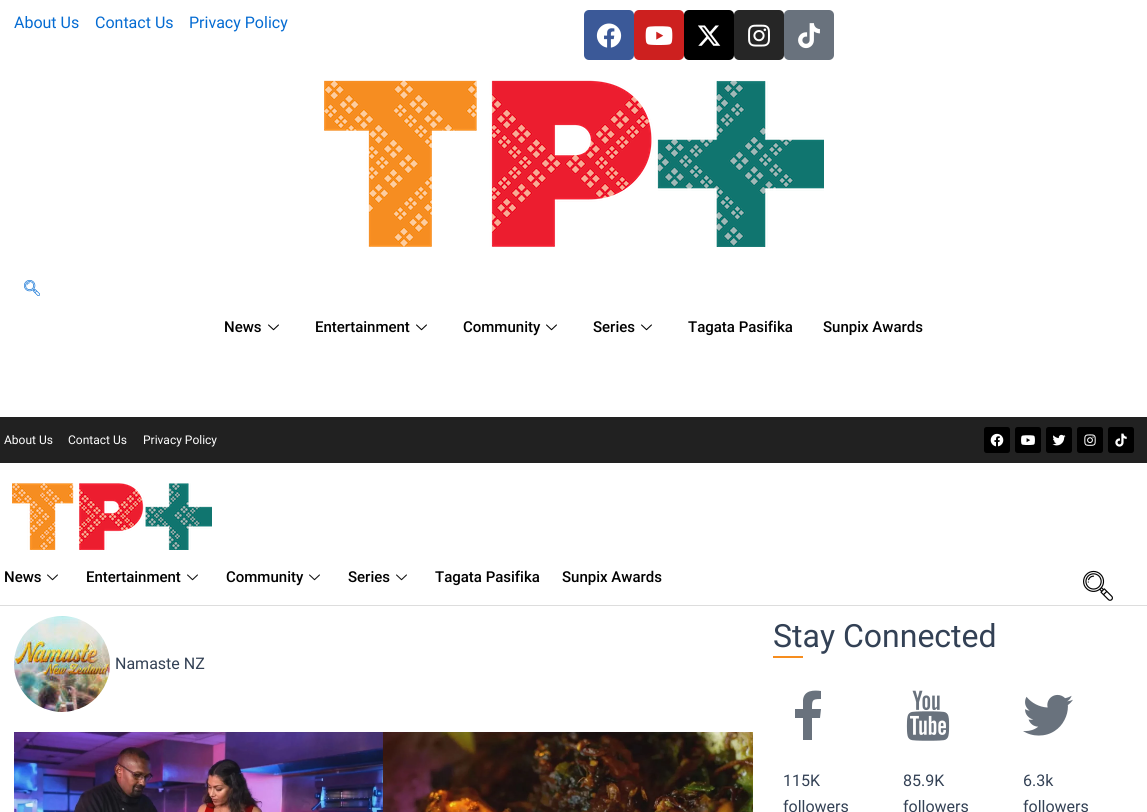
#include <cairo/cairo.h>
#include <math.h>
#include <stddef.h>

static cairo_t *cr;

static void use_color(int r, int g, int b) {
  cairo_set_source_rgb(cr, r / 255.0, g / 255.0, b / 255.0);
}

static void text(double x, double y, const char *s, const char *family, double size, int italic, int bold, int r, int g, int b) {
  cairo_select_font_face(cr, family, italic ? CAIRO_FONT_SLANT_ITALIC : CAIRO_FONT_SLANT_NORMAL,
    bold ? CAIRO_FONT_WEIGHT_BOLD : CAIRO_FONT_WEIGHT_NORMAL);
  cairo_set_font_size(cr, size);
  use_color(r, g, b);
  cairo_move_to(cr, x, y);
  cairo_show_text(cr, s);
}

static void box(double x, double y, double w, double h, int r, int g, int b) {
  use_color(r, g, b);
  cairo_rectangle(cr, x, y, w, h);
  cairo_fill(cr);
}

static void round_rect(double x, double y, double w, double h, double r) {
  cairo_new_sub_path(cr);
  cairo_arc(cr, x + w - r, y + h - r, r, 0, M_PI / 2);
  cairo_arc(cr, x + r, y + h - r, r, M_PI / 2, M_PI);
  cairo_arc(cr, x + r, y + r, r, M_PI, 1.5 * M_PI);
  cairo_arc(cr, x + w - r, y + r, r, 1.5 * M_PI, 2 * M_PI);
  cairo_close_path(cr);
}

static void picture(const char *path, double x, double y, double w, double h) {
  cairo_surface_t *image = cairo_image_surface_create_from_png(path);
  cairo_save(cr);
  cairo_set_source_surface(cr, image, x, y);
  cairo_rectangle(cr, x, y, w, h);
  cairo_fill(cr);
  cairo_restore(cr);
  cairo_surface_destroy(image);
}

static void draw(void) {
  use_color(255, 255, 255);
  cairo_paint(cr);
  use_color(59, 89, 152);
  round_rect(584, 10, 50, 50, 5);
  cairo_fill(cr);
  picture("img_01.png", 596, 23, 26, 25);
  use_color(205, 32, 31);
  round_rect(634, 10, 50, 50, 5);
  cairo_fill(cr);
  picture("img_02.png", 645, 26, 28, 19);
  use_color(0, 0, 0);
  round_rect(684, 10, 50, 50, 5);
  cairo_fill(cr);
  picture("img_03.png", 698, 25, 23, 21);
  use_color(38, 38, 38);
  round_rect(734, 10, 50, 50, 5);
  cairo_fill(cr);
  picture("img_04.png", 748, 24, 22, 23);
  use_color(105, 114, 125);
  round_rect(784, 10, 50, 50, 5);
  cairo_fill(cr);
  picture("img_05.png", 798, 23, 22, 26);
  picture("img_06.png", 324, 80, 500, 167);
  picture("img_07.png", 24, 280, 16, 16);
  picture("img_08.png", 268, 324, 11, 7);
  picture("img_08.png", 416, 324, 11, 7);
  picture("img_08.png", 546, 324, 11, 7);
  picture("img_08.png", 641, 324, 11, 7);
  box(0, 417, 1147, 46, 33, 33, 33);
  use_color(0, 0, 0);
  round_rect(984, 427, 26, 26, 2.5);
  cairo_fill(cr);
  picture("img_09.png", 990, 433, 14, 14);
  round_rect(1015, 427, 26, 26, 2.5);
  cairo_fill(cr);
  picture("img_10.png", 1021, 435, 14, 10);
  round_rect(1046, 427, 26, 26, 2.5);
  cairo_fill(cr);
  picture("img_11.png", 1052, 434, 14, 12);
  round_rect(1077, 427, 26, 26, 2.5);
  cairo_fill(cr);
  picture("img_12.png", 1084, 434, 12, 12);
  round_rect(1108, 427, 26, 26, 2.5);
  cairo_fill(cr);
  picture("img_13.png", 1115, 433, 12, 14);
  picture("img_14.png", 12, 483, 200, 67);
  box(0, 605, 1147, 1, 221, 221, 221);
  picture("img_15.png", 47, 574, 11, 7);
  picture("img_15.png", 187, 574, 11, 7);
  picture("img_15.png", 309, 574, 11, 7);
  picture("img_15.png", 396, 574, 11, 7);
  picture("img_16.png", 1083, 570, 30, 31);
  picture("img_17.png", 14, 616, 96, 96);
  picture("img_18.png", 14, 732, 369, 80);
  picture("img_19.png", 383, 732, 370, 80);
  box(773, 656, 30, 2, 246, 141, 30);
  use_color(105, 114, 125);
  cairo_new_path(cr);
  cairo_move_to(cr, 820, 718);
  cairo_line_to(cr, 812, 718);
  cairo_line_to(cr, 812, 740);
  cairo_line_to(cr, 803, 740);
  cairo_line_to(cr, 803, 718);
  cairo_line_to(cr, 795, 718);
  cairo_line_to(cr, 795, 709);
  cairo_line_to(cr, 803, 709);
  cairo_line_to(cr, 803, 700);
  cairo_curve_to(cr, 804, 690, 814, 690, 821, 691);
  cairo_line_to(cr, 821, 699);
  cairo_curve_to(cr, 812, 699, 812, 700, 812, 709);
  cairo_line_to(cr, 821, 709);
  cairo_close_path(cr);
  cairo_fill(cr);
  picture("img_20.png", 906, 690, 44, 51);
  picture("img_21.png", 1023, 694, 50, 42);
  text(14, 28, "About Us", "Roboto", 16, 0, 0, 4, 107, 210);
  text(95, 28, "Contact Us", "Roboto", 16, 0, 0, 4, 107, 210);
  text(189, 28, "Privacy Policy", "Roboto", 16, 0, 0, 4, 107, 210);
  text(224, 332, "News", "Roboto Medium", 15, 0, 0, 0, 0, 0);
  text(315, 332, "Entertainment", "Roboto Medium", 15, 0, 0, 0, 0, 0);
  text(463, 332, "Community", "Roboto Medium", 15, 0, 0, 0, 0, 0);
  text(593, 332, "Series", "Roboto Medium", 15, 0, 0, 0, 0, 0);
  text(688, 332, "Tagata Pasifika", "Roboto Medium", 15, 0, 0, 0, 0, 0);
  text(823, 332, "Sunpix Awards", "Roboto Medium", 15, 0, 0, 0, 0, 0);
  text(4, 444, "About Us", "Roboto", 12, 0, 0, 255, 255, 255);
  text(68, 444, "Contact Us", "Roboto", 12, 0, 0, 255, 255, 255);
  text(143, 444, "Privacy Policy", "Roboto", 12, 0, 0, 255, 255, 255);
  text(4, 582, "News", "Roboto Medium", 15, 0, 0, 0, 0, 0);
  text(86, 582, "Entertainment", "Roboto Medium", 15, 0, 0, 0, 0, 0);
  text(226, 582, "Community", "Roboto Medium", 15, 0, 0, 0, 0, 0);
  text(348, 582, "Series", "Roboto Medium", 15, 0, 0, 0, 0, 0);
  text(435, 582, "Tagata Pasifika", "Roboto Medium", 15, 0, 0, 0, 0, 0);
  text(562, 582, "Sunpix Awards", "Roboto Medium", 15, 0, 0, 0, 0, 0);
  text(115, 669, "Namaste NZ", "Roboto", 16, 0, 0, 51, 65, 85);
  text(773, 647, "Stay Connected", "Roboto", 32, 0, 0, 51, 65, 85);
  text(783, 786, "115K", "Roboto", 16, 0, 0, 51, 65, 85);
  text(783, 812, "followers", "Roboto", 16, 0, 0, 51, 65, 85);
  text(903, 786, "85.9K", "Roboto", 16, 0, 0, 51, 65, 85);
  text(903, 812, "followers", "Roboto", 16, 0, 0, 51, 65, 85);
  text(1023, 786, "6.3k", "Roboto", 16, 0, 0, 51, 65, 85);
  text(1023, 812, "followers", "Roboto", 16, 0, 0, 51, 65, 85);
}

int main(void) {
  cairo_surface_t *surface = cairo_image_surface_create(CAIRO_FORMAT_RGB24, 1147, 812);
  cr = cairo_create(surface);
  cairo_font_options_t *options = cairo_font_options_create();
  cairo_font_options_set_hint_metrics(options, CAIRO_HINT_METRICS_OFF);
  cairo_font_options_set_hint_style(options, CAIRO_HINT_STYLE_NONE);
  cairo_set_font_options(cr, options);
  cairo_set_miter_limit(cr, 4);
  draw();
  cairo_surface_write_to_png(surface, "out.png");
  cairo_font_options_destroy(options);
  cairo_destroy(cr);
  cairo_surface_destroy(surface);
  return 0;
}
